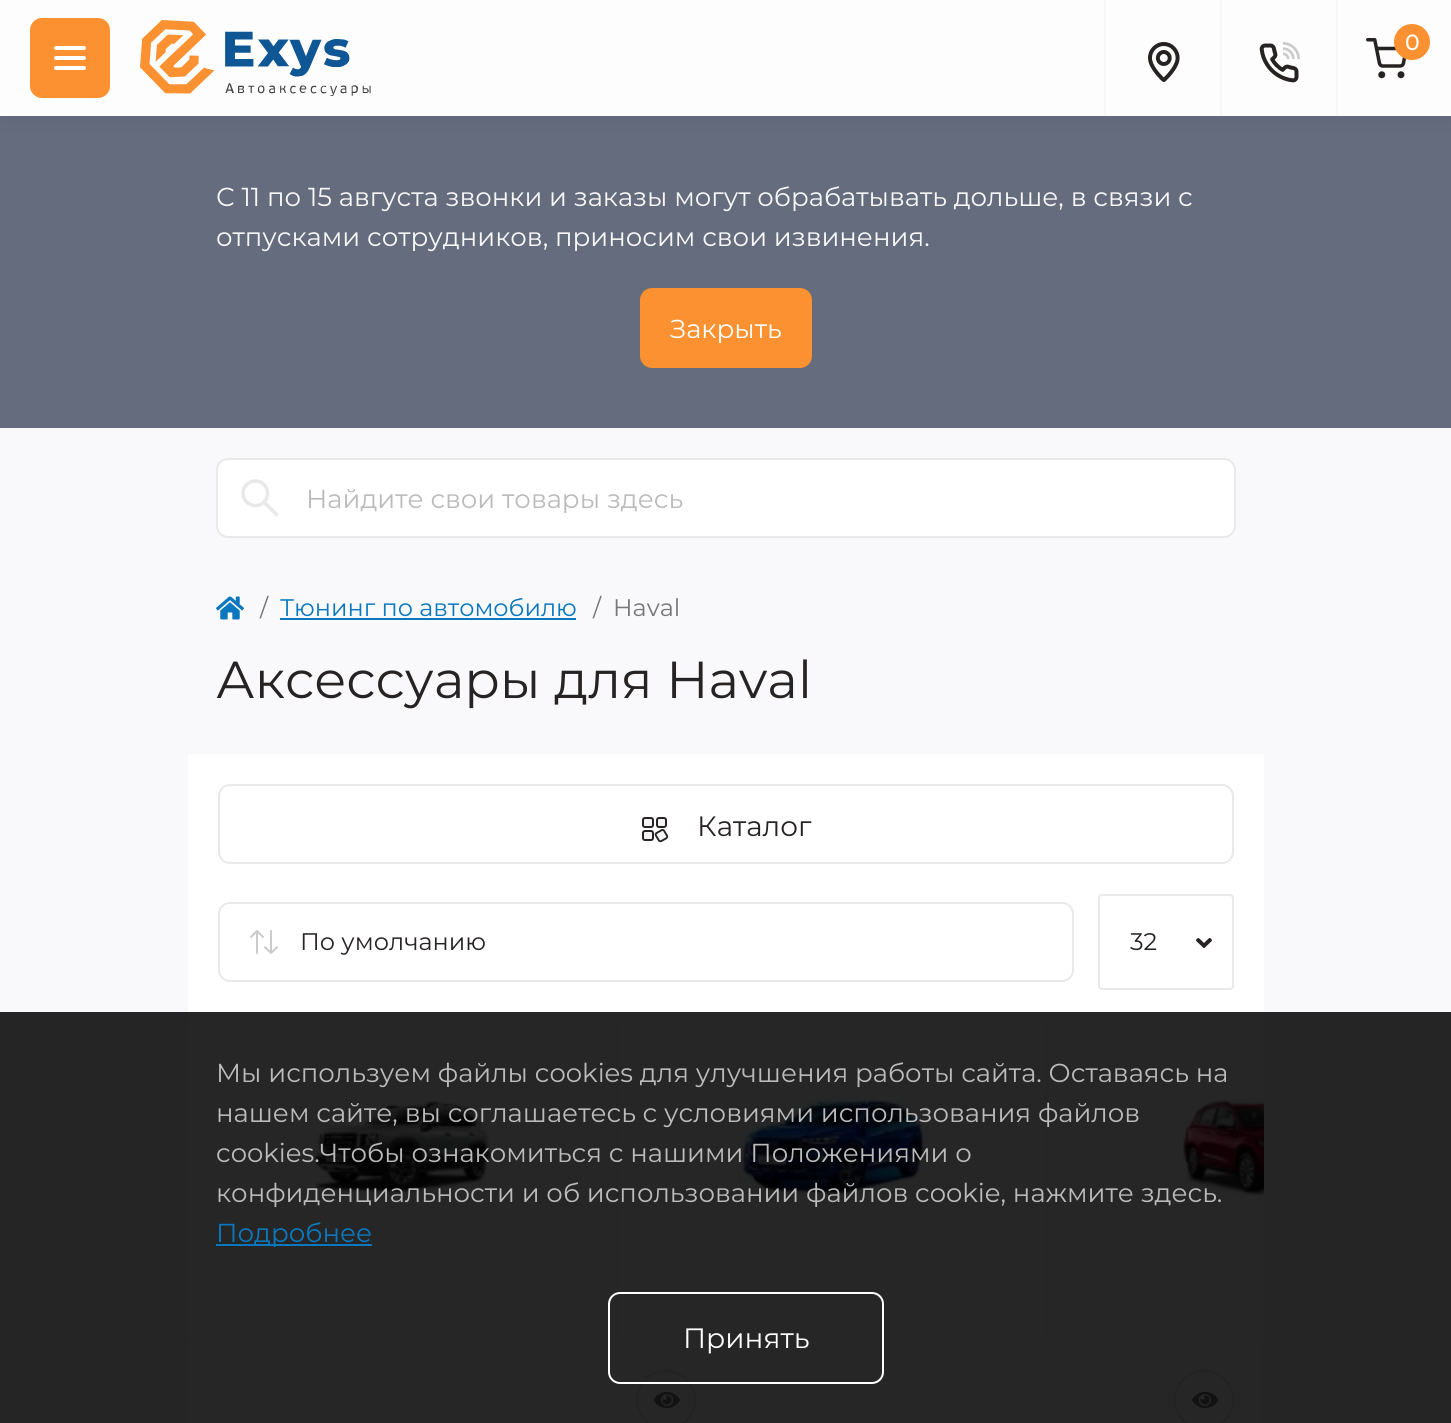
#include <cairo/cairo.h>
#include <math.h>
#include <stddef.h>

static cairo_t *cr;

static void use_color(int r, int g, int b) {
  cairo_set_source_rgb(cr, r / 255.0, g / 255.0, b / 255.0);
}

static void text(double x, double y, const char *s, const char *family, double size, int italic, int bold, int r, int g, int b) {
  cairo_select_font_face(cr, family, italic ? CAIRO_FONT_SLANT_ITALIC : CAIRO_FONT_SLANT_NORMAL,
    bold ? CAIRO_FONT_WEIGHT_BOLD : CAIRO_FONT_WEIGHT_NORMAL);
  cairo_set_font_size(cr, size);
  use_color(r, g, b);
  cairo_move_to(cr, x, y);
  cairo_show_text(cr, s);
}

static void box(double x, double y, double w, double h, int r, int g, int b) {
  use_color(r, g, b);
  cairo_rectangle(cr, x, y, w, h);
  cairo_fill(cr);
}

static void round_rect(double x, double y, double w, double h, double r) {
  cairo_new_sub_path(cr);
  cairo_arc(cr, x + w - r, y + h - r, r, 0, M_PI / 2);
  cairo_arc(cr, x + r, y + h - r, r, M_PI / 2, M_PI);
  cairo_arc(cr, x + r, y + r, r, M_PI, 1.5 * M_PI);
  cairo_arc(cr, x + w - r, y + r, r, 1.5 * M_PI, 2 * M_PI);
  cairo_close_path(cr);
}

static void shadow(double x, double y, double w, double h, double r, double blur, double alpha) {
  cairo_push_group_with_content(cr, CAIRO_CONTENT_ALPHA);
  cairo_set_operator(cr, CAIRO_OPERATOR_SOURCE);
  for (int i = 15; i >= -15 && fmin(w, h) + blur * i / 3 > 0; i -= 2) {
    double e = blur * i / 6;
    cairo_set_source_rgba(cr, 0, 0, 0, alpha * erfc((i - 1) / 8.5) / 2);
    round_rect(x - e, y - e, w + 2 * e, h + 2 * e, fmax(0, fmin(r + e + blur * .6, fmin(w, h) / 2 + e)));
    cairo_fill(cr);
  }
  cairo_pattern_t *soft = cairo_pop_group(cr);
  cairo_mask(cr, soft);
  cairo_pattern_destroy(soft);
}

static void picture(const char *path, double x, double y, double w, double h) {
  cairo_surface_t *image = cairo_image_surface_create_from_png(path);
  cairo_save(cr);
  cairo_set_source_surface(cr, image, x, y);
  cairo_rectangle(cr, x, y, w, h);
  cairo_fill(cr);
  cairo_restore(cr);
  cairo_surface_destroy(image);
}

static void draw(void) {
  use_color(249, 249, 252);
  cairo_paint(cr);
  box(0, 116, 1451, 312, 101, 108, 125);
  use_color(0, 0, 0);
  shadow(0, 0, 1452, 116, 0, 15, 0.06);
  box(0, 0, 1451, 116, 253, 253, 253);
  use_color(251, 145, 48);
  round_rect(30, 18, 80, 80, 12);
  cairo_fill(cr);
  use_color(255, 255, 255);
  round_rect(54, 46, 32, 4, 2);
  cairo_fill(cr);
  round_rect(54, 56, 32, 4, 2);
  cairo_fill(cr);
  round_rect(54, 66, 32, 4, 2);
  cairo_fill(cr);
  box(1104, 0, 2, 116, 247, 247, 247);
  picture("img_01.png", 1148, 42, 32, 40);
  box(1220, 0, 2, 116, 247, 247, 247);
  picture("img_02.png", 1259, 42, 41, 41);
  picture("img_03.png", 140, 20, 231, 76);
  box(1336, 0, 2, 116, 247, 247, 247);
  picture("img_04.png", 1366, 38, 40, 41);
  use_color(251, 145, 48);
  cairo_arc(cr, 1412, 42, 18, 0, 2 * M_PI);
  cairo_fill(cr);
  use_color(255, 255, 255);
  round_rect(217, 459, 1018, 78, 11);
  cairo_fill_preserve(cr);
  use_color(233, 233, 233);
  cairo_stroke(cr);
  picture("img_05.png", 241, 479, 38, 38);
  use_color(251, 145, 48);
  round_rect(640, 288, 172, 80, 12);
  cairo_fill(cr);
  picture("img_06.png", 216, 596, 28, 24);
  box(280, 618, 296, 2, 10, 120, 191);
  box(188, 754, 1076, 669, 255, 255, 255);
  round_rect(219, 785, 1014, 78, 11);
  use_color(233, 233, 233);
  cairo_stroke(cr);
  picture("img_07.png", 642, 817, 27, 26);
  box(188, 1020, 1076, 2, 247, 247, 247);
  picture("img_08.png", 250, 930, 28, 24);
  round_rect(219, 903, 854, 78, 11);
  use_color(233, 233, 233);
  cairo_stroke(cr);
  picture("img_09.png", 1196, 938, 16, 10);
  round_rect(1099, 895, 134, 94, 3);
  cairo_stroke(cr);
  cairo_save(cr);
  cairo_rectangle(cr, 188, 1022, 430, 318);
  cairo_clip(cr);
  use_color(249, 249, 252);
  cairo_set_fill_rule(cr, CAIRO_FILL_RULE_EVEN_ODD);
  cairo_new_path(cr);
  cairo_move_to(cr, -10, 824);
  cairo_line_to(cr, 816, 824);
  cairo_line_to(cr, 816, 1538);
  cairo_line_to(cr, -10, 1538);
  cairo_close_path(cr);
  cairo_move_to(cr, 186, 1020);
  cairo_line_to(cr, 616, 1020);
  cairo_line_to(cr, 616, 1338);
  cairo_line_to(cr, 186, 1338);
  cairo_close_path(cr);
  cairo_fill(cr);
  cairo_restore(cr);
  picture("img_10.png", 310, 1100, 183, 96);
  cairo_save(cr);
  cairo_rectangle(cr, 618, 1022, 430, 318);
  cairo_clip(cr);
  use_color(249, 249, 252);
  cairo_set_fill_rule(cr, CAIRO_FILL_RULE_EVEN_ODD);
  cairo_new_path(cr);
  cairo_move_to(cr, 420, 824);
  cairo_line_to(cr, 1246, 824);
  cairo_line_to(cr, 1246, 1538);
  cairo_line_to(cr, 420, 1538);
  cairo_close_path(cr);
  cairo_move_to(cr, 616, 1020);
  cairo_line_to(cr, 1046, 1020);
  cairo_line_to(cr, 1046, 1338);
  cairo_line_to(cr, 616, 1338);
  cairo_close_path(cr);
  cairo_fill(cr);
  cairo_restore(cr);
  picture("img_11.png", 738, 1098, 190, 100);
  cairo_save(cr);
  cairo_rectangle(cr, 1048, 1022, 216, 318);
  cairo_clip(cr);
  use_color(249, 249, 252);
  cairo_set_fill_rule(cr, CAIRO_FILL_RULE_EVEN_ODD);
  cairo_new_path(cr);
  cairo_move_to(cr, 850, 824);
  cairo_line_to(cr, 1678, 824);
  cairo_line_to(cr, 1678, 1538);
  cairo_line_to(cr, 850, 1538);
  cairo_close_path(cr);
  cairo_move_to(cr, 1046, 1020);
  cairo_line_to(cr, 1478, 1020);
  cairo_line_to(cr, 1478, 1338);
  cairo_line_to(cr, 1046, 1338);
  cairo_close_path(cr);
  cairo_fill(cr);
  cairo_restore(cr);
  picture("img_12.png", 1183, 1099, 81, 97);
  cairo_save(cr);
  cairo_rectangle(cr, 188, 1340, 538, 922);
  cairo_clip(cr);
  use_color(249, 249, 252);
  cairo_set_fill_rule(cr, CAIRO_FILL_RULE_EVEN_ODD);
  cairo_new_path(cr);
  cairo_move_to(cr, -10, 1142);
  cairo_line_to(cr, 924, 1142);
  cairo_line_to(cr, 924, 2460);
  cairo_line_to(cr, -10, 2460);
  cairo_close_path(cr);
  cairo_move_to(cr, 186, 1338);
  cairo_line_to(cr, 724, 1338);
  cairo_line_to(cr, 724, 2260);
  cairo_line_to(cr, 186, 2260);
  cairo_close_path(cr);
  cairo_fill(cr);
  cairo_restore(cr);
  cairo_arc(cr, 666, 1400, 29, 0, 2 * M_PI);
  cairo_stroke(cr);
  picture("img_13.png", 654, 1392, 26, 16);
  cairo_save(cr);
  cairo_rectangle(cr, 726, 1340, 538, 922);
  cairo_clip(cr);
  use_color(249, 249, 252);
  cairo_set_fill_rule(cr, CAIRO_FILL_RULE_EVEN_ODD);
  cairo_new_path(cr);
  cairo_move_to(cr, 528, 1142);
  cairo_line_to(cr, 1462, 1142);
  cairo_line_to(cr, 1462, 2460);
  cairo_line_to(cr, 528, 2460);
  cairo_close_path(cr);
  cairo_move_to(cr, 724, 1338);
  cairo_line_to(cr, 1262, 1338);
  cairo_line_to(cr, 1262, 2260);
  cairo_line_to(cr, 724, 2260);
  cairo_close_path(cr);
  cairo_fill(cr);
  cairo_restore(cr);
  cairo_arc(cr, 1204, 1400, 29, 0, 2 * M_PI);
  cairo_stroke(cr);
  picture("img_13.png", 1192, 1392, 26, 16);
  cairo_set_source_rgba(cr, 0, 0, 0, 0.85);
  cairo_rectangle(cr, 0, 1012, 1451, 411);
  cairo_fill(cr);
  box(216, 1244, 156, 2, 10, 120, 191);
  round_rect(609, 1293, 274, 90, 11);
  use_color(255, 255, 255);
  cairo_stroke(cr);
  text(1405, 50, "0", "Montserrat Medium", 22, 0, 0, 255, 255, 255);
  text(306, 508, "Найдите свои товары здесь", "Montserrat", 26, 0, 0, 187, 187, 187);
  text(216, 206, "С 11 по 15 августа звонки и заказы могут обрабатывать дольше, в связи с", "Montserrat", 26, 0, 0, 248, 248, 248);
  text(216, 246, "отпусками сотрудников, приносим свои извинения.", "Montserrat", 26, 0, 0, 248, 248, 248);
  text(670, 338, "Закрыть", "Montserrat", 26, 0, 0, 255, 255, 255);
  text(260, 616, "/", "Montserrat", 24, 0, 0, 119, 119, 119);
  text(280, 616, "Тюнинг по автомобилю", "Montserrat", 24, 0, 0, 10, 120, 191);
  text(593, 616, "/", "Montserrat", 24, 0, 0, 119, 119, 119);
  text(613, 616, "Haval", "Montserrat", 24, 0, 0, 119, 119, 119);
  text(216, 698, "Аксессуары для Haval", "Montserrat", 52, 0, 0, 39, 35, 35);
  text(697, 836, "Каталог", "Montserrat", 28, 0, 0, 39, 35, 35);
  text(300, 950, "По умолчанию", "Montserrat", 24, 0, 0, 39, 35, 35);
  text(1130, 950, "32", "Montserrat", 24, 0, 0, 39, 35, 35);
  text(216, 1082, "Мы используем файлы cookies для улучшения работы сайта. Оставаясь на", "Montserrat", 26, 0, 0, 187, 187, 187);
  text(216, 1122, "нашем сайте, вы соглашаетесь с условиями использования файлов", "Montserrat", 26, 0, 0, 187, 187, 187);
  text(216, 1162, "cookies.Чтобы ознакомиться с нашими Положениями о", "Montserrat", 26, 0, 0, 187, 187, 187);
  text(216, 1202, "конфиденциальности и об использовании файлов cookie, нажмите здесь.", "Montserrat", 26, 0, 0, 187, 187, 187);
  text(216, 1242, "Подробнее", "Montserrat", 26, 0, 0, 10, 120, 191);
  text(683, 1348, "Принять", "Montserrat", 28, 0, 0, 255, 255, 255);
}

int main(void) {
  cairo_surface_t *surface = cairo_image_surface_create(CAIRO_FORMAT_RGB24, 1451, 1423);
  cr = cairo_create(surface);
  cairo_font_options_t *options = cairo_font_options_create();
  cairo_font_options_set_hint_metrics(options, CAIRO_HINT_METRICS_OFF);
  cairo_font_options_set_hint_style(options, CAIRO_HINT_STYLE_NONE);
  cairo_set_font_options(cr, options);
  cairo_set_miter_limit(cr, 4);
  draw();
  cairo_surface_write_to_png(surface, "out.png");
  cairo_font_options_destroy(options);
  cairo_destroy(cr);
  cairo_surface_destroy(surface);
  return 0;
}
